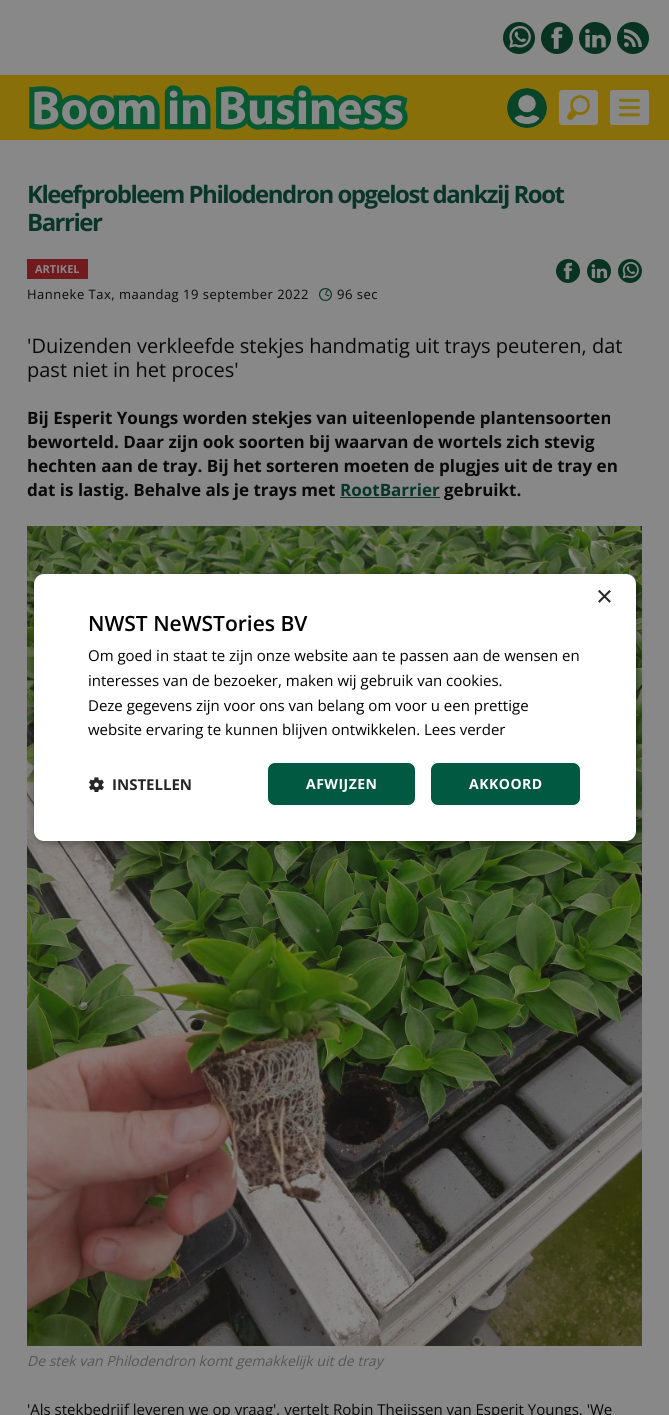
#include <cairo/cairo.h>
#include <math.h>
#include <stddef.h>

static cairo_t *cr;

static void use_color(int r, int g, int b) {
  cairo_set_source_rgb(cr, r / 255.0, g / 255.0, b / 255.0);
}

static void text(double x, double y, const char *s, const char *family, double size, int italic, int bold, int r, int g, int b) {
  cairo_select_font_face(cr, family, italic ? CAIRO_FONT_SLANT_ITALIC : CAIRO_FONT_SLANT_NORMAL,
    bold ? CAIRO_FONT_WEIGHT_BOLD : CAIRO_FONT_WEIGHT_NORMAL);
  cairo_set_font_size(cr, size);
  use_color(r, g, b);
  cairo_move_to(cr, x, y);
  cairo_show_text(cr, s);
}

static void spaced_text(double x, double y, const char *s, double letter, double word) {
  cairo_move_to(cr, x, y);
  while (*s) {
    char ch[5] = {0};
    int n = 0;
    do ch[n++] = *s++; while ((*s & 0xC0) == 0x80);
    cairo_show_text(cr, ch);
    cairo_rel_move_to(cr, letter + word * (*ch == ' '), 0);
  }
}

static void box(double x, double y, double w, double h, int r, int g, int b) {
  use_color(r, g, b);
  cairo_rectangle(cr, x, y, w, h);
  cairo_fill(cr);
}

static void round_rect(double x, double y, double w, double h, double r) {
  cairo_new_sub_path(cr);
  cairo_arc(cr, x + w - r, y + h - r, r, 0, M_PI / 2);
  cairo_arc(cr, x + r, y + h - r, r, M_PI / 2, M_PI);
  cairo_arc(cr, x + r, y + r, r, M_PI, 1.5 * M_PI);
  cairo_arc(cr, x + w - r, y + r, r, 1.5 * M_PI, 2 * M_PI);
  cairo_close_path(cr);
}

static void shadow(double x, double y, double w, double h, double r, double blur, double alpha) {
  cairo_push_group_with_content(cr, CAIRO_CONTENT_ALPHA);
  cairo_set_operator(cr, CAIRO_OPERATOR_SOURCE);
  for (int i = 15; i >= -15 && fmin(w, h) + blur * i / 3 > 0; i -= 2) {
    double e = blur * i / 6;
    cairo_set_source_rgba(cr, 0, 0, 0, alpha * erfc((i - 1) / 8.5) / 2);
    round_rect(x - e, y - e, w + 2 * e, h + 2 * e, fmax(0, fmin(r + e + blur * .6, fmin(w, h) / 2 + e)));
    cairo_fill(cr);
  }
  cairo_pattern_t *soft = cairo_pop_group(cr);
  cairo_mask(cr, soft);
  cairo_pattern_destroy(soft);
}

static void picture(const char *path, double x, double y, double w, double h) {
  cairo_surface_t *image = cairo_image_surface_create_from_png(path);
  cairo_save(cr);
  cairo_set_source_surface(cr, image, x, y);
  cairo_rectangle(cr, x, y, w, h);
  cairo_fill(cr);
  cairo_restore(cr);
  cairo_surface_destroy(image);
}

static void draw(void) {
  use_color(136, 136, 136);
  cairo_paint(cr);
  picture("img_01.png", 503, 22, 32, 32);
  picture("img_02.png", 541, 22, 32, 32);
  picture("img_03.png", 579, 22, 32, 32);
  picture("img_04.png", 617, 22, 32, 32);
  box(0, 75, 669, 65, 136, 111, 9);
  picture("img_05.png", 29, 85, 379, 45);
  picture("img_06.png", 507, 88, 40, 40);
  use_color(136, 136, 136);
  round_rect(559, 90, 39, 35, 3);
  cairo_fill(cr);
  picture("img_07.png", 567, 95, 23, 25);
  picture("img_08.png", 610, 90, 39, 35);
  box(27, 259, 61, 20, 114, 26, 30);
  picture("img_09.png", 556, 259, 24, 24);
  picture("img_10.png", 587, 259, 24, 24);
  picture("img_11.png", 618, 259, 24, 24);
  picture("img_12.png", 319, 288, 13, 13);
  box(340, 497, 100, 1, 9, 53, 41);
  picture("img_13.png", 27, 526, 615, 820);
  use_color(0, 0, 0);
  shadow(35, 576, 602, 267, 10, 4, 0.35);
  use_color(255, 255, 255);
  round_rect(34, 574, 602, 267, 10);
  cairo_fill(cr);
  picture("img_14.png", 89, 777, 15, 15);
  use_color(1, 89, 65);
  round_rect(267.5, 762.5, 148, 43, 7.5);
  cairo_fill_preserve(cr);
  use_color(255, 255, 255);
  cairo_set_line_width(cr, 1);
  cairo_stroke(cr);
  use_color(1, 89, 65);
  round_rect(430.5, 762.5, 150, 43, 7.5);
  cairo_fill_preserve(cr);
  use_color(255, 255, 255);
  cairo_stroke(cr);
  cairo_select_font_face(cr, "Open Sans", CAIRO_FONT_SLANT_NORMAL, CAIRO_FONT_WEIGHT_BOLD);
  cairo_set_font_size(cr, 24);
  use_color(9, 53, 41);
  spaced_text(27, 203, "Kleefprobleem Philodendron opgelost dankzij Root", -1.5, 0);
  spaced_text(27, 231, "Barrier", -1.5, 0);
  text(35, 273, "ARTIKEL", "Open Sans", 11, 0, 1, 136, 136, 136);
  cairo_select_font_face(cr, "Open Sans", CAIRO_FONT_SLANT_NORMAL, CAIRO_FONT_WEIGHT_NORMAL);
  cairo_set_font_size(cr, 13);
  use_color(9, 9, 9);
  spaced_text(27, 299, "Hanneke Tax, maandag 19 september 2022", 0.5, 0);
  spaced_text(337, 299, "96 sec", 0.5, 0);
  text(27, 353, "'Duizenden verkleefde stekjes handmatig uit trays peuteren, dat", "Open Sans", 20, 0, 0, 9, 9, 9);
  text(27, 377, "past niet in het proces'", "Open Sans", 20, 0, 0, 9, 9, 9);
  text(27, 424, "Bij Esperit Youngs worden stekjes van uiteenlopende plantensoorten", "Open Sans", 17, 0, 1, 9, 9, 9);
  text(27, 448, "beworteld. Daar zijn ook soorten bij waarvan de wortels zich stevig", "Open Sans", 17, 0, 1, 9, 9, 9);
  text(27, 472, "hechten aan de tray. Bij het sorteren moeten de plugjes uit de tray en", "Open Sans", 17, 0, 1, 9, 9, 9);
  text(27, 496, "dat is lastig. Behalve als je trays met", "Open Sans", 17, 0, 1, 9, 9, 9);
  text(340, 496, "RootBarrier", "Open Sans", 17, 0, 1, 9, 53, 41);
  text(444, 496, "gebruikt.", "Open Sans", 17, 0, 1, 9, 9, 9);
  text(27, 1366, "De stek van Philodendron komt gemakkelijk uit de tray", "Open Sans", 14, 1, 0, 85, 85, 85);
  text(27, 1415, "'Als stekbedrijf leveren we op vraag', vertelt Robin Theijssen van Esperit Youngs. 'We", "Open Sans", 15, 0, 0, 9, 9, 9);
  text(596, 606, "×", "Liberation Sans", 29, 0, 0, 38, 38, 38);
  text(88, 631, "NWST NeWSTories BV", "Open Sans SemiBold", 21, 0, 0, 0, 0, 0);
  text(88, 661, "Om goed in staat te zijn onze website aan te passen aan de wensen en", "Open Sans", 15, 0, 0, 0, 0, 0);
  text(88, 686, "interesses van de bezoeker, maken wij gebruik van cookies.", "Open Sans", 15, 0, 0, 0, 0, 0);
  text(88, 711, "Deze gegevens zijn voor ons van belang om voor u een prettige", "Open Sans", 15, 0, 0, 0, 0, 0);
  text(88, 735, "website ervaring te kunnen blijven ontwikkelen. Lees verder", "Open Sans", 15, 0, 0, 0, 0, 0);
  text(112, 790, "INSTELLEN", "Open Sans", 15, 0, 1, 38, 38, 38);
  cairo_set_font_size(cr, 14);
  use_color(255, 255, 255);
  spaced_text(306, 789, "AFWIJZEN", 0.5, 0);
  spaced_text(469, 789, "AKKOORD", 0.5, 0);
}

int main(void) {
  cairo_surface_t *surface = cairo_image_surface_create(CAIRO_FORMAT_RGB24, 669, 1415);
  cr = cairo_create(surface);
  cairo_font_options_t *options = cairo_font_options_create();
  cairo_font_options_set_hint_metrics(options, CAIRO_HINT_METRICS_OFF);
  cairo_font_options_set_hint_style(options, CAIRO_HINT_STYLE_NONE);
  cairo_set_font_options(cr, options);
  cairo_set_miter_limit(cr, 4);
  draw();
  cairo_surface_write_to_png(surface, "out.png");
  cairo_font_options_destroy(options);
  cairo_destroy(cr);
  cairo_surface_destroy(surface);
  return 0;
}
